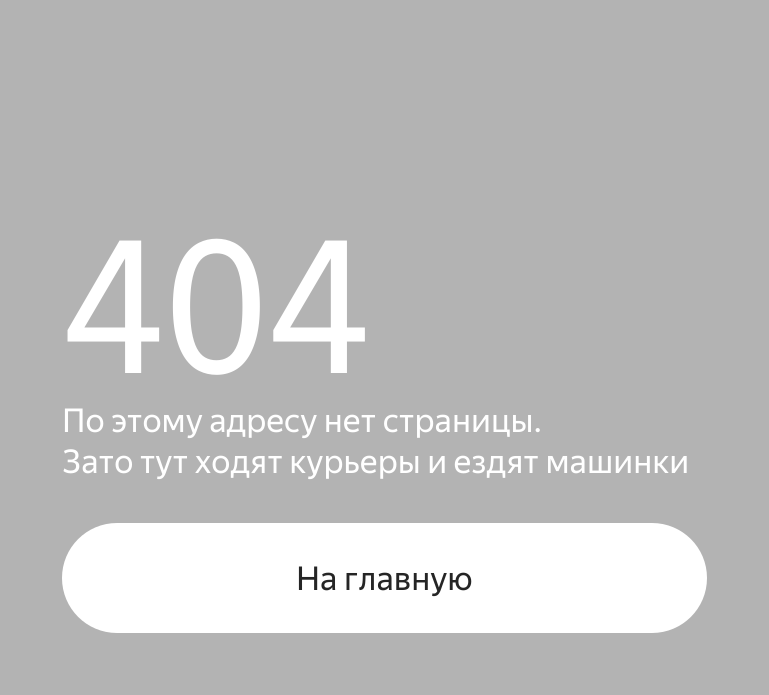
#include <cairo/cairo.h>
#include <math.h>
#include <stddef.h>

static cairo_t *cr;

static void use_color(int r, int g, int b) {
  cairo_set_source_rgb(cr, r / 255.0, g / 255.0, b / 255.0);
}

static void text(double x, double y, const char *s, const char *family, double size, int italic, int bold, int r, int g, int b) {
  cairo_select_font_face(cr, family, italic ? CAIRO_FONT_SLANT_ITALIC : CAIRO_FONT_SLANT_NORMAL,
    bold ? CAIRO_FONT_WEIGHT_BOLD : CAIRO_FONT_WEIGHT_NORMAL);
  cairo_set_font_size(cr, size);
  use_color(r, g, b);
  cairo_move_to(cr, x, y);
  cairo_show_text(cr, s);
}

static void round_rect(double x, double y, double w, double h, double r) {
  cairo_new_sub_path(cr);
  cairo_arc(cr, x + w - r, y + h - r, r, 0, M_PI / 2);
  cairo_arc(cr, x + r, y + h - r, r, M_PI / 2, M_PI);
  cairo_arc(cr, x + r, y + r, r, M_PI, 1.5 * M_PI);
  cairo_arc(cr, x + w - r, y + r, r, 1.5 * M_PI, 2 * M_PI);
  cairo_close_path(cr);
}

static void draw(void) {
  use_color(179, 179, 179);
  cairo_paint(cr);
  use_color(255, 255, 255);
  round_rect(62, 523, 645, 110, 55);
  cairo_fill(cr);
  text(62, 373, "404", "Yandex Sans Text", 185, 0, 0, 255, 255, 255);
  text(62, 432, "По этому адресу нет страницы.", "Yandex Sans Text", 32.8, 0, 0, 255, 255, 255);
  text(62, 473, "Зато тут ходят курьеры и ездят машинки", "Yandex Sans Text", 32.8, 0, 0, 255, 255, 255);
  text(296, 590, "На главную", "Yandex Sans Text", 32.8, 0, 0, 37, 37, 37);
}

int main(void) {
  cairo_surface_t *surface = cairo_image_surface_create(CAIRO_FORMAT_RGB24, 769, 695);
  cr = cairo_create(surface);
  cairo_font_options_t *options = cairo_font_options_create();
  cairo_font_options_set_hint_metrics(options, CAIRO_HINT_METRICS_OFF);
  cairo_font_options_set_hint_style(options, CAIRO_HINT_STYLE_NONE);
  cairo_set_font_options(cr, options);
  cairo_set_miter_limit(cr, 4);
  draw();
  cairo_surface_write_to_png(surface, "out.png");
  cairo_font_options_destroy(options);
  cairo_destroy(cr);
  cairo_surface_destroy(surface);
  return 0;
}
